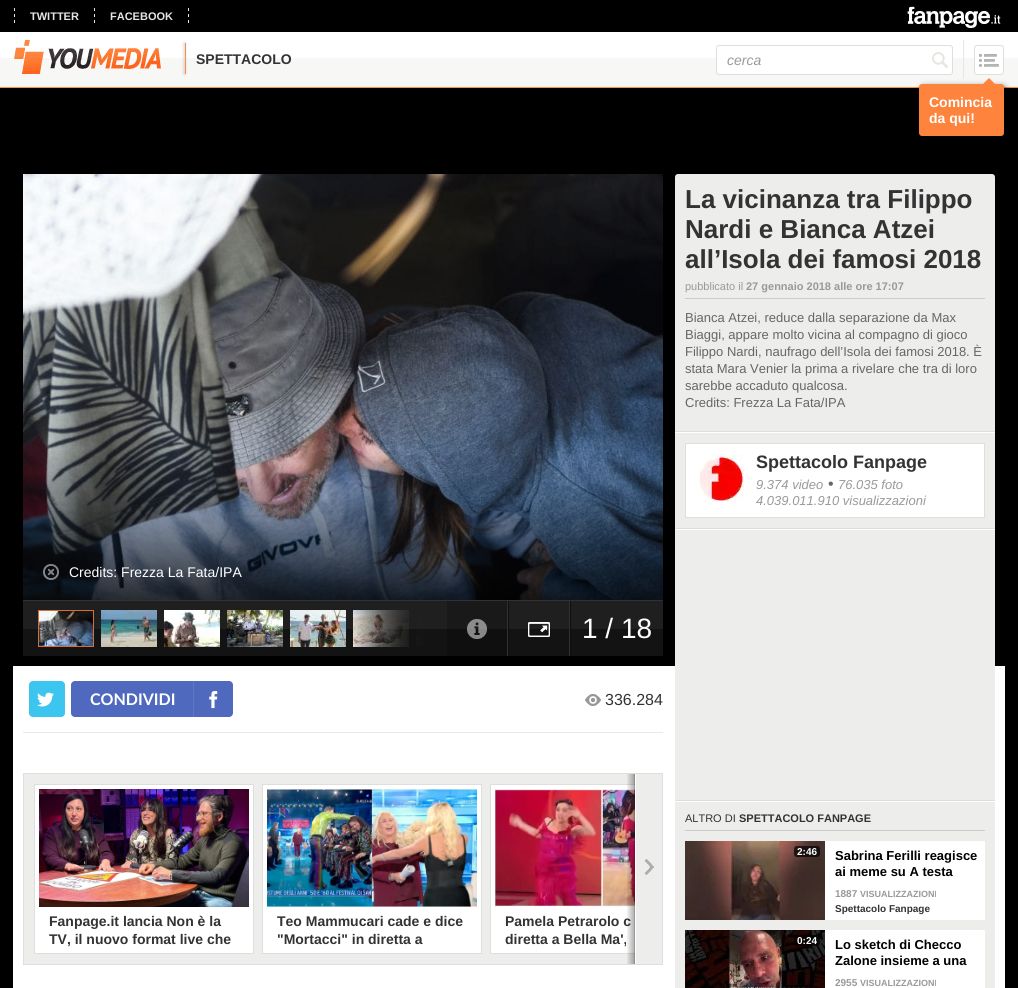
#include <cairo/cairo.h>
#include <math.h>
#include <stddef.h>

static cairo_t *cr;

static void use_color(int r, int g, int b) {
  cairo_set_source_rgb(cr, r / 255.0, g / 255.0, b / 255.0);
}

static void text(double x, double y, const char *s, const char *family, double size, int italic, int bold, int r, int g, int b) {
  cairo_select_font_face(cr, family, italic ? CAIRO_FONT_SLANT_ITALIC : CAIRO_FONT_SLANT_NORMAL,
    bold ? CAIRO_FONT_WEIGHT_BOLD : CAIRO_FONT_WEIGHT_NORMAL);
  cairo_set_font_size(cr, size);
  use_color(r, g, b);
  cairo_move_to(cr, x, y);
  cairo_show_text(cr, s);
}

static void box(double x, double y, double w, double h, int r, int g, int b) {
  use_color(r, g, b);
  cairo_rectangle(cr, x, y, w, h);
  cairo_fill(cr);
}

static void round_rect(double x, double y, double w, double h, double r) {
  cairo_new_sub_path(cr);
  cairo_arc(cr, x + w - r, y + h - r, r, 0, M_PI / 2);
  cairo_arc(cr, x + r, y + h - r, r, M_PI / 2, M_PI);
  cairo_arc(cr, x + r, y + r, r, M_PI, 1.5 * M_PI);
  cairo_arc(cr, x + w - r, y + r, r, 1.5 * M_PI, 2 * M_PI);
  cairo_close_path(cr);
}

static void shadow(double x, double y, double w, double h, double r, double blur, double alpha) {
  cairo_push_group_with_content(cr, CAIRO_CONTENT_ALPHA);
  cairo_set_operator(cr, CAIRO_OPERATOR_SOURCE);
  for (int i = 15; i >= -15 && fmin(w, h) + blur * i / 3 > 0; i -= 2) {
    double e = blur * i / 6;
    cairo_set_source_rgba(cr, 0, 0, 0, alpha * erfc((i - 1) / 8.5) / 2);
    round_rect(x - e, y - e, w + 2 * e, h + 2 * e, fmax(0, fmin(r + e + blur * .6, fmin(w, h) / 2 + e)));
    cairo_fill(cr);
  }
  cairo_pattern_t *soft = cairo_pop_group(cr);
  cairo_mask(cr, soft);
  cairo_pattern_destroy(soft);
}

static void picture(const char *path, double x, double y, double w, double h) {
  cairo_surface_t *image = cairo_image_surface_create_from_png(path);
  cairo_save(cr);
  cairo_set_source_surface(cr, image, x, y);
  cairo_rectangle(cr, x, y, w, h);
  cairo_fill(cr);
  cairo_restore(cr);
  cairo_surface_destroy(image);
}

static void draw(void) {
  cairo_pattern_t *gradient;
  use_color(0, 0, 0);
  cairo_paint(cr);
  cairo_new_path(cr);
  cairo_move_to(cr, 94.5, 8);
  cairo_line_to(cr, 94.5, 11);
  cairo_move_to(cr, 94.5, 14);
  cairo_line_to(cr, 94.5, 17);
  cairo_move_to(cr, 94.5, 20);
  cairo_line_to(cr, 94.5, 23);
  use_color(230, 230, 227);
  cairo_set_line_width(cr, 1);
  cairo_stroke(cr);
  cairo_new_path(cr);
  cairo_move_to(cr, 14.5, 8);
  cairo_line_to(cr, 14.5, 11);
  cairo_move_to(cr, 14.5, 14);
  cairo_line_to(cr, 14.5, 17);
  cairo_move_to(cr, 14.5, 20);
  cairo_line_to(cr, 14.5, 23);
  cairo_stroke(cr);
  cairo_new_path(cr);
  cairo_move_to(cr, 188.5, 8);
  cairo_line_to(cr, 188.5, 11);
  cairo_move_to(cr, 188.5, 14);
  cairo_line_to(cr, 188.5, 17);
  cairo_move_to(cr, 188.5, 20);
  cairo_line_to(cr, 188.5, 23);
  cairo_stroke(cr);
  picture("img_01.png", 907, 6, 94, 22);
  box(0, 32, 1018, 26, 255, 255, 255);
  box(0, 58, 1018, 29, 247, 247, 245);
  box(0, 87, 1018, 1, 254, 141, 69);
  picture("img_02.png", 14, 40, 147, 34);
  use_color(0, 0, 0);
  shadow(184, 43, 1, 31, 0, 1.5, 0.2);
  box(185, 43, 1, 31, 254, 141, 69);
  use_color(255, 255, 255);
  round_rect(716, 45, 237, 30, 3);
  cairo_fill(cr);
  picture("img_03.png", 932, 52, 16, 16);
  round_rect(716.5, 45.5, 236, 29, 2.5);
  use_color(222, 222, 222);
  cairo_stroke(cr);
  box(963, 40, 1, 39, 230, 230, 227);
  use_color(255, 255, 255);
  round_rect(974, 45, 30, 30, 3);
  cairo_fill(cr);
  picture("img_04.png", 979, 54, 20, 13);
  round_rect(974.5, 45.5, 29, 29, 2.5);
  use_color(222, 222, 222);
  cairo_stroke(cr);
  use_color(0, 0, 0);
  shadow(921, 86, 85, 52, 3, 3, 0.5);
  use_color(254, 132, 61);
  round_rect(919, 84, 85, 52, 3);
  cairo_fill(cr);
  cairo_new_path(cr);
  cairo_move_to(cr, 997, 86);
  cairo_line_to(cr, 981, 86);
  cairo_line_to(cr, 989, 78);
  cairo_close_path(cr);
  cairo_fill(cr);
  box(13, 666, 992, 322, 255, 255, 255);
  picture("img_05.png", 23, 174, 640, 426);
  picture("img_06.png", 43, 564, 16, 16);
  box(23, 629, 640, 27, 19, 19, 19);
  box(23, 601, 640, 28, 31, 31, 31);
  box(23, 600, 640, 1, 49, 49, 49);
  cairo_rectangle(cr, 38.5, 610.5, 55, 36);
  use_color(218, 109, 49);
  cairo_stroke(cr);
  picture("img_07.png", 39, 611, 54, 35);
  picture("img_08.png", 101, 610, 56, 37);
  picture("img_09.png", 164, 610, 56, 37);
  picture("img_10.png", 227, 610, 56, 37);
  picture("img_11.png", 290, 610, 56, 37);
  picture("img_12.png", 353, 610, 56, 37);
  picture("img_13.png", 416, 610, 8, 37);
  picture("img_14.png", 353, 610, 94, 37);
  box(507, 601, 1, 55, 49, 49, 49);
  cairo_set_source_rgba(cr, 0, 0, 0, 0.2);
  cairo_rectangle(cr, 447, 601, 60, 55);
  cairo_fill(cr);
  picture("img_15.png", 467, 619, 20, 20);
  box(569, 601, 1, 55, 49, 49, 49);
  box(508, 601, 1, 55, 15, 15, 15);
  picture("img_16.png", 528, 622, 22, 15);
  box(570, 601, 1, 55, 15, 15, 15);
  use_color(237, 237, 235);
  round_rect(675, 174, 320, 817, 3);
  cairo_fill(cr);
  box(685, 298, 300, 1, 204, 204, 204);
  box(675, 431, 320, 1, 222, 222, 222);
  box(675, 432, 320, 1, 255, 255, 255);
  cairo_rectangle(cr, 685.5, 443.5, 299, 74);
  cairo_fill_preserve(cr);
  use_color(222, 222, 222);
  cairo_stroke(cr);
  picture("img_17.png", 696, 454, 49, 49);
  box(675, 528, 320, 1, 222, 222, 222);
  box(675, 529, 320, 1, 255, 255, 255);
  box(675, 800, 320, 1, 222, 222, 222);
  box(675, 801, 320, 1, 255, 255, 255);
  box(685, 830, 300, 1, 204, 204, 204);
  box(825, 841, 160, 79, 255, 255, 255);
  picture("img_18.png", 685, 841, 140, 79);
  cairo_set_source_rgba(cr, 0, 0, 0, 0.7);
  round_rect(794, 846, 26, 11, 3);
  cairo_fill(cr);
  box(825, 930, 160, 58, 255, 255, 255);
  picture("img_19.png", 685, 930, 140, 58);
  cairo_set_source_rgba(cr, 0, 0, 0, 0.7);
  round_rect(794, 935, 26, 11, 3);
  cairo_fill(cr);
  box(23, 732, 640, 1, 233, 234, 229);
  use_color(60, 197, 239);
  round_rect(29, 681, 36, 36, 4);
  cairo_fill(cr);
  picture("img_20.png", 37, 692, 17, 15);
  use_color(79, 105, 190);
  round_rect(71, 681, 162, 36, 4);
  cairo_fill(cr);
  box(193, 681, 1, 36, 97, 120, 197);
  picture("img_21.png", 209, 691, 9, 18);
  picture("img_22.png", 585, 694, 16, 12);
  box(24, 774, 611, 190, 237, 237, 235);
  cairo_rectangle(cr, 23.5, 773.5, 639, 191);
  use_color(222, 222, 222);
  cairo_stroke(cr);
  use_color(255, 255, 255);
  cairo_rectangle(cr, 34.5, 784.5, 219, 169);
  cairo_fill_preserve(cr);
  use_color(222, 222, 222);
  cairo_stroke(cr);
  picture("img_23.png", 39, 789, 210, 118);
  use_color(255, 255, 255);
  cairo_rectangle(cr, 262.5, 784.5, 219, 169);
  cairo_fill_preserve(cr);
  use_color(222, 222, 222);
  cairo_stroke(cr);
  picture("img_24.png", 267, 789, 210, 118);
  box(491, 785, 144, 168, 255, 255, 255);
  text(30, 20, "TWITTER", "Liberation Sans", 11, 0, 1, 230, 230, 227);
  text(110, 20, "FACEBOOK", "Liberation Sans", 11, 0, 1, 230, 230, 227);
  text(196, 64, "SPETTACOLO", "Liberation Sans", 14, 0, 1, 51, 51, 51);
  text(727, 65, "cerca", "Liberation Sans", 14, 1, 0, 153, 153, 153);
  text(929, 107, "Comincia", "Liberation Sans", 14, 0, 1, 255, 255, 255);
  text(929, 123, "da qui!", "Liberation Sans", 14, 0, 1, 255, 255, 255);
  text(69, 577, "Credits: Frezza La Fata/IPA", "Liberation Sans", 14, 0, 0, 255, 255, 255);
  text(582, 638, "1 / 18", "Liberation Sans", 28, 0, 0, 255, 255, 255);
  text(685, 208, "La vicinanza tra Filippo", "Liberation Sans", 26, 0, 1, 51, 51, 51);
  text(685, 238, "Nardi e Bianca Atzei", "Liberation Sans", 26, 0, 1, 51, 51, 51);
  text(685, 268, "all’Isola dei famosi 2018", "Liberation Sans", 26, 0, 1, 51, 51, 51);
  text(685, 290, "pubblicato il", "Liberation Sans", 11, 0, 0, 153, 153, 153);
  text(746, 290, "27 gennaio 2018 alle ore 17:07", "Liberation Sans", 11, 0, 1, 153, 153, 153);
  text(685, 322, "Bianca Atzei, reduce dalla separazione da Max", "Liberation Sans", 13, 0, 0, 102, 102, 102);
  text(685, 339, "Biaggi, appare molto vicina al compagno di gioco", "Liberation Sans", 13, 0, 0, 102, 102, 102);
  text(685, 356, "Filippo Nardi, naufrago dell’Isola dei famosi 2018. È", "Liberation Sans", 13, 0, 0, 102, 102, 102);
  text(685, 373, "stata Mara Venier la prima a rivelare che tra di loro", "Liberation Sans", 13, 0, 0, 102, 102, 102);
  text(685, 390, "sarebbe accaduto qualcosa.", "Liberation Sans", 13, 0, 0, 102, 102, 102);
  text(685, 407, "Credits: Frezza La Fata/IPA", "Liberation Sans", 13, 0, 0, 102, 102, 102);
  text(756, 468, "Spettacolo Fanpage", "Liberation Sans", 18, 0, 1, 51, 51, 51);
  text(756, 489, "9.374 video", "Liberation Sans", 13, 1, 0, 153, 153, 153);
  text(828, 489, "•", "Liberation Sans", 16, 0, 0, 102, 102, 102);
  text(838, 489, "76.035 foto", "Liberation Sans", 13, 1, 0, 153, 153, 153);
  text(756, 505, "4.039.011.910 visualizzazioni", "Liberation Sans", 13, 1, 0, 153, 153, 153);
  text(685, 822, "ALTRO DI", "Liberation Sans", 11, 0, 0, 51, 51, 51);
  text(739, 822, "SPETTACOLO FANPAGE", "Liberation Sans", 11, 0, 1, 51, 51, 51);
  text(797, 855, "2:46", "Liberation Sans", 10, 0, 1, 255, 255, 255);
  text(835, 860, "Sabrina Ferilli reagisce", "Liberation Sans", 13, 0, 1, 0, 0, 0);
  text(835, 876, "ai meme su A testa", "Liberation Sans", 13, 0, 1, 0, 0, 0);
  text(835, 897, "1887", "Liberation Sans", 10, 0, 1, 153, 153, 153);
  text(860, 897, "VISUALIZZAZIONI", "Liberation Sans", 9, 0, 1, 153, 153, 153);
  text(835, 912, "Spettacolo Fanpage", "Liberation Sans", 10, 0, 1, 51, 51, 51);
  text(797, 944, "0:24", "Liberation Sans", 10, 0, 1, 255, 255, 255);
  text(835, 949, "Lo sketch di Checco", "Liberation Sans", 13, 0, 1, 0, 0, 0);
  text(835, 965, "Zalone insieme a una", "Liberation Sans", 13, 0, 1, 0, 0, 0);
  text(835, 986, "2955", "Liberation Sans", 10, 0, 1, 153, 153, 153);
  text(860, 986, "VISUALIZZAZIONI", "Liberation Sans", 9, 0, 1, 153, 153, 153);
  text(90, 705, "CONDIVIDI", "Lato", 16, 0, 1, 255, 255, 255);
  text(605, 705, "336.284", "Liberation Sans", 16, 0, 0, 51, 51, 51);
  text(49, 926, "Fanpage.it lancia Non è la", "Liberation Sans", 14, 0, 1, 51, 51, 51);
  text(49, 944, "TV, il nuovo format live che", "Liberation Sans", 14, 0, 1, 51, 51, 51);
  text(277, 926, "Teo Mammucari cade e dice", "Liberation Sans", 14, 0, 1, 51, 51, 51);
  text(277, 944, "\"Mortacci\" in diretta a", "Liberation Sans", 14, 0, 1, 51, 51, 51);
  cairo_save(cr);
  cairo_rectangle(cr, 24, 774, 638, 190);
  cairo_clip(cr);
  cairo_rectangle(cr, 490.5, 784.5, 219, 169);
  use_color(222, 222, 222);
  cairo_stroke(cr);
  cairo_restore(cr);
  picture("img_25.png", 495, 789, 140, 118);
  text(505, 926, "Pamela Petrarolo c", "Liberation Sans", 14, 0, 1, 51, 51, 51);
  text(505, 944, "diretta a Bella Ma',", "Liberation Sans", 14, 0, 1, 51, 51, 51);
  box(635, 784, 1, 170, 255, 255, 255);
  gradient = cairo_pattern_create_linear(634, 869, 626, 869);
  cairo_pattern_add_color_stop_rgba(gradient, 0, 0, 0, 0, 0.3);
  cairo_pattern_add_color_stop_rgba(gradient, 1, 0, 0, 0, 0);
  cairo_set_source(cr, gradient);
  cairo_pattern_destroy(gradient);
  cairo_rectangle(cr, 627, 774, 7, 190);
  cairo_fill(cr);
  cairo_set_source_rgba(cr, 0, 0, 0, 0.4);
  cairo_rectangle(cr, 634, 774, 1, 190);
  cairo_fill(cr);
  box(636, 774, 26, 190, 237, 237, 235);
  picture("img_26.png", 644, 859, 10, 16);
}

int main(void) {
  cairo_surface_t *surface = cairo_image_surface_create(CAIRO_FORMAT_RGB24, 1018, 988);
  cr = cairo_create(surface);
  cairo_font_options_t *options = cairo_font_options_create();
  cairo_font_options_set_hint_metrics(options, CAIRO_HINT_METRICS_OFF);
  cairo_font_options_set_hint_style(options, CAIRO_HINT_STYLE_NONE);
  cairo_set_font_options(cr, options);
  cairo_set_miter_limit(cr, 4);
  draw();
  cairo_surface_write_to_png(surface, "out.png");
  cairo_font_options_destroy(options);
  cairo_destroy(cr);
  cairo_surface_destroy(surface);
  return 0;
}
